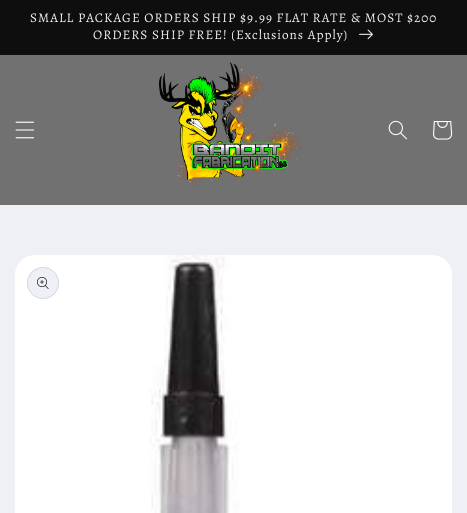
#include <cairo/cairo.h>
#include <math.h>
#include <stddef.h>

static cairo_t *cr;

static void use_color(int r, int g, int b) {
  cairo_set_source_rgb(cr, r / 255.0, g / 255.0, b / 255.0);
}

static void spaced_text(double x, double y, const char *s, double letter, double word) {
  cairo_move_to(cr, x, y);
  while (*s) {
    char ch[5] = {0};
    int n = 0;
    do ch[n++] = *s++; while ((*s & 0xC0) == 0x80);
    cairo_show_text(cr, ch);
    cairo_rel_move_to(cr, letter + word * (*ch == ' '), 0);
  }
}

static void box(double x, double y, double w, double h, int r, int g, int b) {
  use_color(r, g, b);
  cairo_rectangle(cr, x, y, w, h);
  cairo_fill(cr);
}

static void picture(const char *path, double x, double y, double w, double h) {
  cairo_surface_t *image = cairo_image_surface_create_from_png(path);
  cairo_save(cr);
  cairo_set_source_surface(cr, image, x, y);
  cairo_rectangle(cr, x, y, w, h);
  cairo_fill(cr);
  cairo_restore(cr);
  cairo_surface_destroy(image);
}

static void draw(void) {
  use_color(239, 240, 245);
  cairo_paint(cr);
  box(0, 54, 467, 1, 19, 19, 20);
  box(0, 0, 467, 54, 14, 14, 15);
  picture("img_01.png", 359, 29, 14, 11);
  box(0, 55, 467, 150, 113, 113, 113);
  picture("img_02.png", 15, 121, 20, 18);
  picture("img_03.png", 159, 62, 143, 125);
  picture("img_04.png", 388, 120, 19, 20);
  picture("img_05.png", 433, 121, 20, 19);
  picture("img_06.png", 15, 255, 437, 258);
  use_color(239, 240, 245);
  cairo_arc(cr, 43, 283, 16, 0, 2 * M_PI);
  cairo_fill(cr);
  cairo_arc(cr, 43, 283, 15.5, 0, 2 * M_PI);
  cairo_set_source_rgba(cr, 0, 0, 0, 0.1);
  cairo_set_line_width(cr, 1);
  cairo_stroke(cr);
  picture("img_07.png", 37, 277, 12, 12);
  cairo_select_font_face(cr, "Alegreya", CAIRO_FONT_SLANT_NORMAL, CAIRO_FONT_WEIGHT_NORMAL);
  cairo_set_font_size(cr, 13.2);
  use_color(239, 240, 245);
  spaced_text(30, 22, "SMALL PACKAGE ORDERS SHIP $9.99 FLAT RATE & MOST $200", 1, 0);
  spaced_text(93, 39, "ORDERS SHIP FREE! (Exclusions Apply)", 1, 0);
}

int main(void) {
  cairo_surface_t *surface = cairo_image_surface_create(CAIRO_FORMAT_RGB24, 467, 513);
  cr = cairo_create(surface);
  cairo_font_options_t *options = cairo_font_options_create();
  cairo_font_options_set_hint_metrics(options, CAIRO_HINT_METRICS_OFF);
  cairo_font_options_set_hint_style(options, CAIRO_HINT_STYLE_NONE);
  cairo_set_font_options(cr, options);
  cairo_set_miter_limit(cr, 4);
  draw();
  cairo_surface_write_to_png(surface, "out.png");
  cairo_font_options_destroy(options);
  cairo_destroy(cr);
  cairo_surface_destroy(surface);
  return 0;
}
